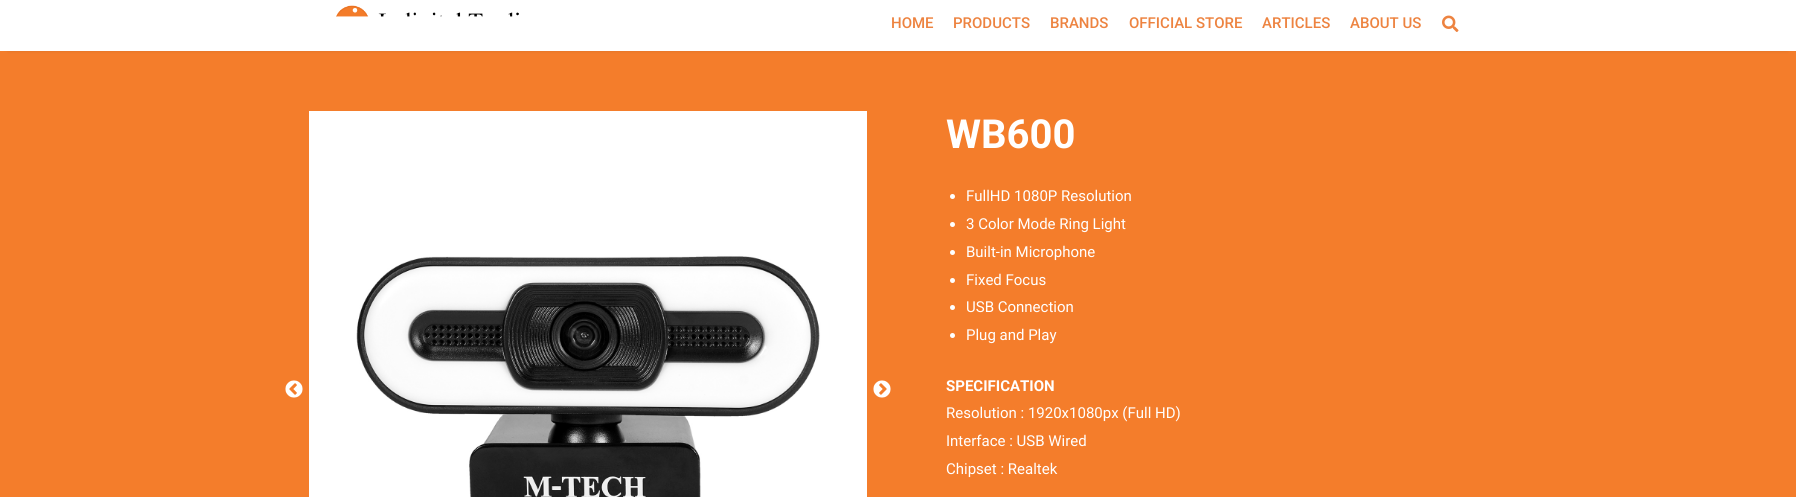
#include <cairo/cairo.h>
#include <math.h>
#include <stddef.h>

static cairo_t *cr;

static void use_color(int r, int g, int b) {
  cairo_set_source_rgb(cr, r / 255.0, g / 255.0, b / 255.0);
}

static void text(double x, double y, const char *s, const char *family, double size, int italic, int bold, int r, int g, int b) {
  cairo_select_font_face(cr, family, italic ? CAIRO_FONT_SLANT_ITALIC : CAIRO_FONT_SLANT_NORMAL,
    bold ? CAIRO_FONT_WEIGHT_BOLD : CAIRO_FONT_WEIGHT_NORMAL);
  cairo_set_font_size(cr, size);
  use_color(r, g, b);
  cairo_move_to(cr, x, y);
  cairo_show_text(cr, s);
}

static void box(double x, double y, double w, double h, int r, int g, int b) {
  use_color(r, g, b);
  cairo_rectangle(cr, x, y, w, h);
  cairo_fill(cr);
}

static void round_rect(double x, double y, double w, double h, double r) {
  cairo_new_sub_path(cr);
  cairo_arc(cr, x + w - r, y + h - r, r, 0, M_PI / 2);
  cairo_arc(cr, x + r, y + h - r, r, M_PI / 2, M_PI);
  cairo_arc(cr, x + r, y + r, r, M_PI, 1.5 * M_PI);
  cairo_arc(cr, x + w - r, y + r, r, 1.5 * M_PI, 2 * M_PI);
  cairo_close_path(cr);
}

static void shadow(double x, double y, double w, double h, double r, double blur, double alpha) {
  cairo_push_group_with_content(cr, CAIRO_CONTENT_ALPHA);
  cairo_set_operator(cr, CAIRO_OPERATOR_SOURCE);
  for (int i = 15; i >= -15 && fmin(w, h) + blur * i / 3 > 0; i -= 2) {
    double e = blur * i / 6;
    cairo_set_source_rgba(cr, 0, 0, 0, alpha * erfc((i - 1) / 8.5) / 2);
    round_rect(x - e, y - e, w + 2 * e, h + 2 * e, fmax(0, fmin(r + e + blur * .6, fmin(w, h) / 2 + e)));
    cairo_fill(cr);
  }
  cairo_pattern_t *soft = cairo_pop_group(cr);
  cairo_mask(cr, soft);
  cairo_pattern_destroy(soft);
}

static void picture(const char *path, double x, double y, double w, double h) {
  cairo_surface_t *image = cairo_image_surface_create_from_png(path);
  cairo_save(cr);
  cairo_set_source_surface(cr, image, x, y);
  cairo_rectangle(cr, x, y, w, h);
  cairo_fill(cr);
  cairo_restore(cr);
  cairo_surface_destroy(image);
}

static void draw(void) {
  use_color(244, 125, 43);
  cairo_paint(cr);
  use_color(0, 0, 0);
  shadow(8, 8, 1780, 40, 0, 2.5, 0.5);
  box(0, 0, 1796, 51, 255, 255, 255);
  picture("img_01.png", 336, 5, 183, 12);
  picture("img_02.png", 1442, 15, 17, 17);
  picture("img_03.png", 285, 380, 18, 18);
  picture("img_04.png", 309, 111, 558, 386);
  picture("img_05.png", 873, 380, 18, 18);
  cairo_arc(cr, 952.5, 196.5, 2.5, 0, 2 * M_PI);
  cairo_fill(cr);
  cairo_arc(cr, 952.5, 224.5, 2.5, 0, 2 * M_PI);
  cairo_fill(cr);
  cairo_arc(cr, 952.5, 252.5, 2.5, 0, 2 * M_PI);
  cairo_fill(cr);
  cairo_arc(cr, 952.5, 280.5, 2.5, 0, 2 * M_PI);
  cairo_fill(cr);
  cairo_arc(cr, 952.5, 307.5, 2.5, 0, 2 * M_PI);
  cairo_fill(cr);
  cairo_arc(cr, 952.5, 335.5, 2.5, 0, 2 * M_PI);
  cairo_fill(cr);
  text(891, 28, "HOME", "Roboto Medium", 15, 0, 0, 237, 131, 64);
  text(953, 28, "PRODUCTS", "Roboto Medium", 15, 0, 0, 237, 131, 64);
  text(1050, 28, "BRANDS", "Roboto Medium", 15, 0, 0, 237, 131, 64);
  text(1129, 28, "OFFICIAL STORE", "Roboto Medium", 15, 0, 0, 237, 131, 64);
  text(1262, 28, "ARTICLES", "Roboto Medium", 15, 0, 0, 237, 131, 64);
  text(1350, 28, "ABOUT US", "Roboto Medium", 15, 0, 0, 237, 131, 64);
  text(946, 148, "WB600", "Roboto", 40, 0, 1, 255, 255, 255);
  text(966, 201, "FullHD 1080P Resolution", "Roboto", 15, 0, 0, 255, 255, 255);
  text(966, 229, "3 Color Mode Ring Light", "Roboto", 15, 0, 0, 255, 255, 255);
  text(966, 257, "Built-in Microphone", "Roboto", 15, 0, 0, 255, 255, 255);
  text(966, 285, "Fixed Focus", "Roboto", 15, 0, 0, 255, 255, 255);
  text(966, 312, "USB Connection", "Roboto", 15, 0, 0, 255, 255, 255);
  text(966, 340, "Plug and Play", "Roboto", 15, 0, 0, 255, 255, 255);
  text(946, 391, "SPECIFICATION", "Roboto", 15, 0, 1, 255, 255, 255);
  text(946, 418, "Resolution : 1920x1080px (Full HD)", "Roboto", 15, 0, 0, 255, 255, 255);
  text(946, 446, "Interface : USB Wired", "Roboto", 15, 0, 0, 255, 255, 255);
  text(946, 474, "Chipset : Realtek", "Roboto", 15, 0, 0, 255, 255, 255);
}

int main(void) {
  cairo_surface_t *surface = cairo_image_surface_create(CAIRO_FORMAT_RGB24, 1796, 497);
  cr = cairo_create(surface);
  cairo_font_options_t *options = cairo_font_options_create();
  cairo_font_options_set_hint_metrics(options, CAIRO_HINT_METRICS_OFF);
  cairo_font_options_set_hint_style(options, CAIRO_HINT_STYLE_NONE);
  cairo_set_font_options(cr, options);
  cairo_set_miter_limit(cr, 4);
  draw();
  cairo_surface_write_to_png(surface, "out.png");
  cairo_font_options_destroy(options);
  cairo_destroy(cr);
  cairo_surface_destroy(surface);
  return 0;
}
